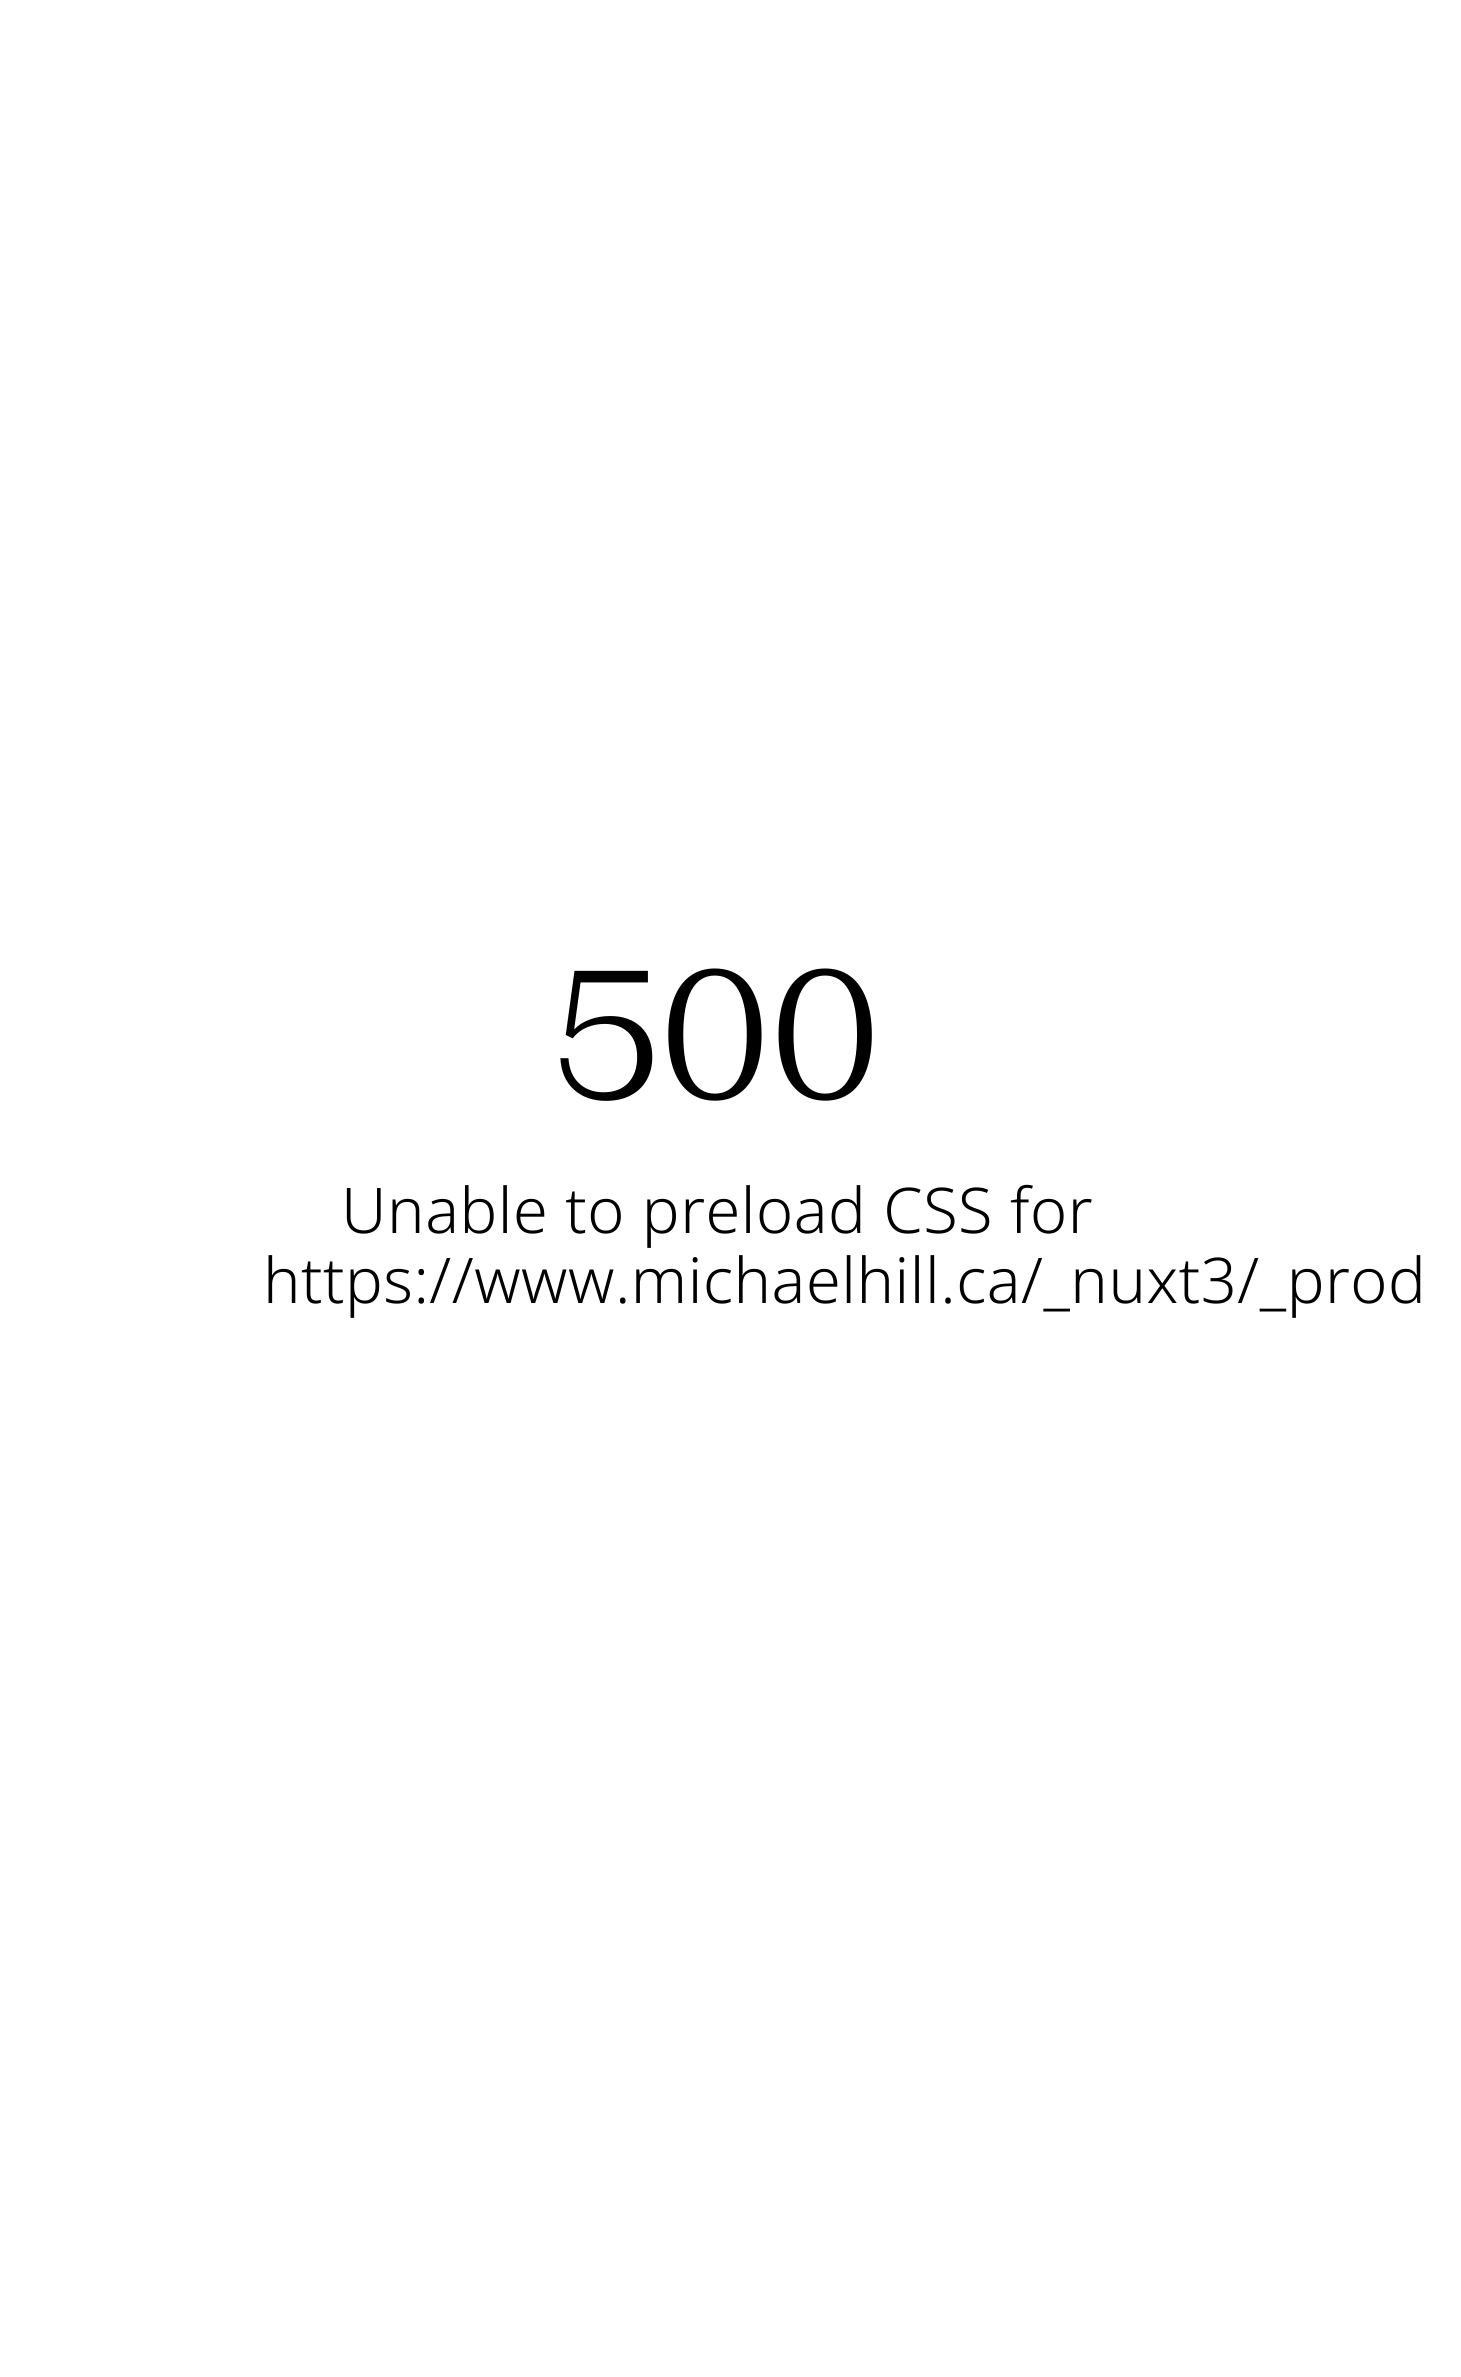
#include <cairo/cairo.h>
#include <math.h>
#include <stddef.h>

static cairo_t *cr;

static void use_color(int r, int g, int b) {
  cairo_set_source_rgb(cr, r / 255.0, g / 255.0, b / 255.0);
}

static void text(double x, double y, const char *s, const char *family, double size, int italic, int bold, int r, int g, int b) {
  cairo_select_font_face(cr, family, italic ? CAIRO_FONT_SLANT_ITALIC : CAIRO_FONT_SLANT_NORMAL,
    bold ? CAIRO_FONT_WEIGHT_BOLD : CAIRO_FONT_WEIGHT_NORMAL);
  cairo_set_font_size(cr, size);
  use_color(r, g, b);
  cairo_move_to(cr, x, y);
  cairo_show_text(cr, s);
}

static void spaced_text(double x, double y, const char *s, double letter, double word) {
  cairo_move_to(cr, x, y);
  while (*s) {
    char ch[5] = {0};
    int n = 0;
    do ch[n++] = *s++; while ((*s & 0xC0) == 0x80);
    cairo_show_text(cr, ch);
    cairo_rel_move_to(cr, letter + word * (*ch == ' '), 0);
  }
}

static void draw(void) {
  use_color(255, 255, 255);
  cairo_paint(cr);
  text(554, 1098, "500", "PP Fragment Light", 168, 0, 0, 0, 0, 0);
  cairo_select_font_face(cr, "Noto Sans Light", CAIRO_FONT_SLANT_NORMAL, CAIRO_FONT_WEIGHT_NORMAL);
  cairo_set_font_size(cr, 63);
  spaced_text(341, 1233, "Unable to preload CSS for", 0.55, 0);
  spaced_text(263, 1303, "https://www.michaelhill.ca/_nuxt3/_prod", 0.55, 0);
}

int main(void) {
  cairo_surface_t *surface = cairo_image_surface_create(CAIRO_FORMAT_RGB24, 1461, 2377);
  cr = cairo_create(surface);
  cairo_font_options_t *options = cairo_font_options_create();
  cairo_font_options_set_hint_metrics(options, CAIRO_HINT_METRICS_OFF);
  cairo_font_options_set_hint_style(options, CAIRO_HINT_STYLE_NONE);
  cairo_set_font_options(cr, options);
  cairo_set_miter_limit(cr, 4);
  draw();
  cairo_surface_write_to_png(surface, "out.png");
  cairo_font_options_destroy(options);
  cairo_destroy(cr);
  cairo_surface_destroy(surface);
  return 0;
}
